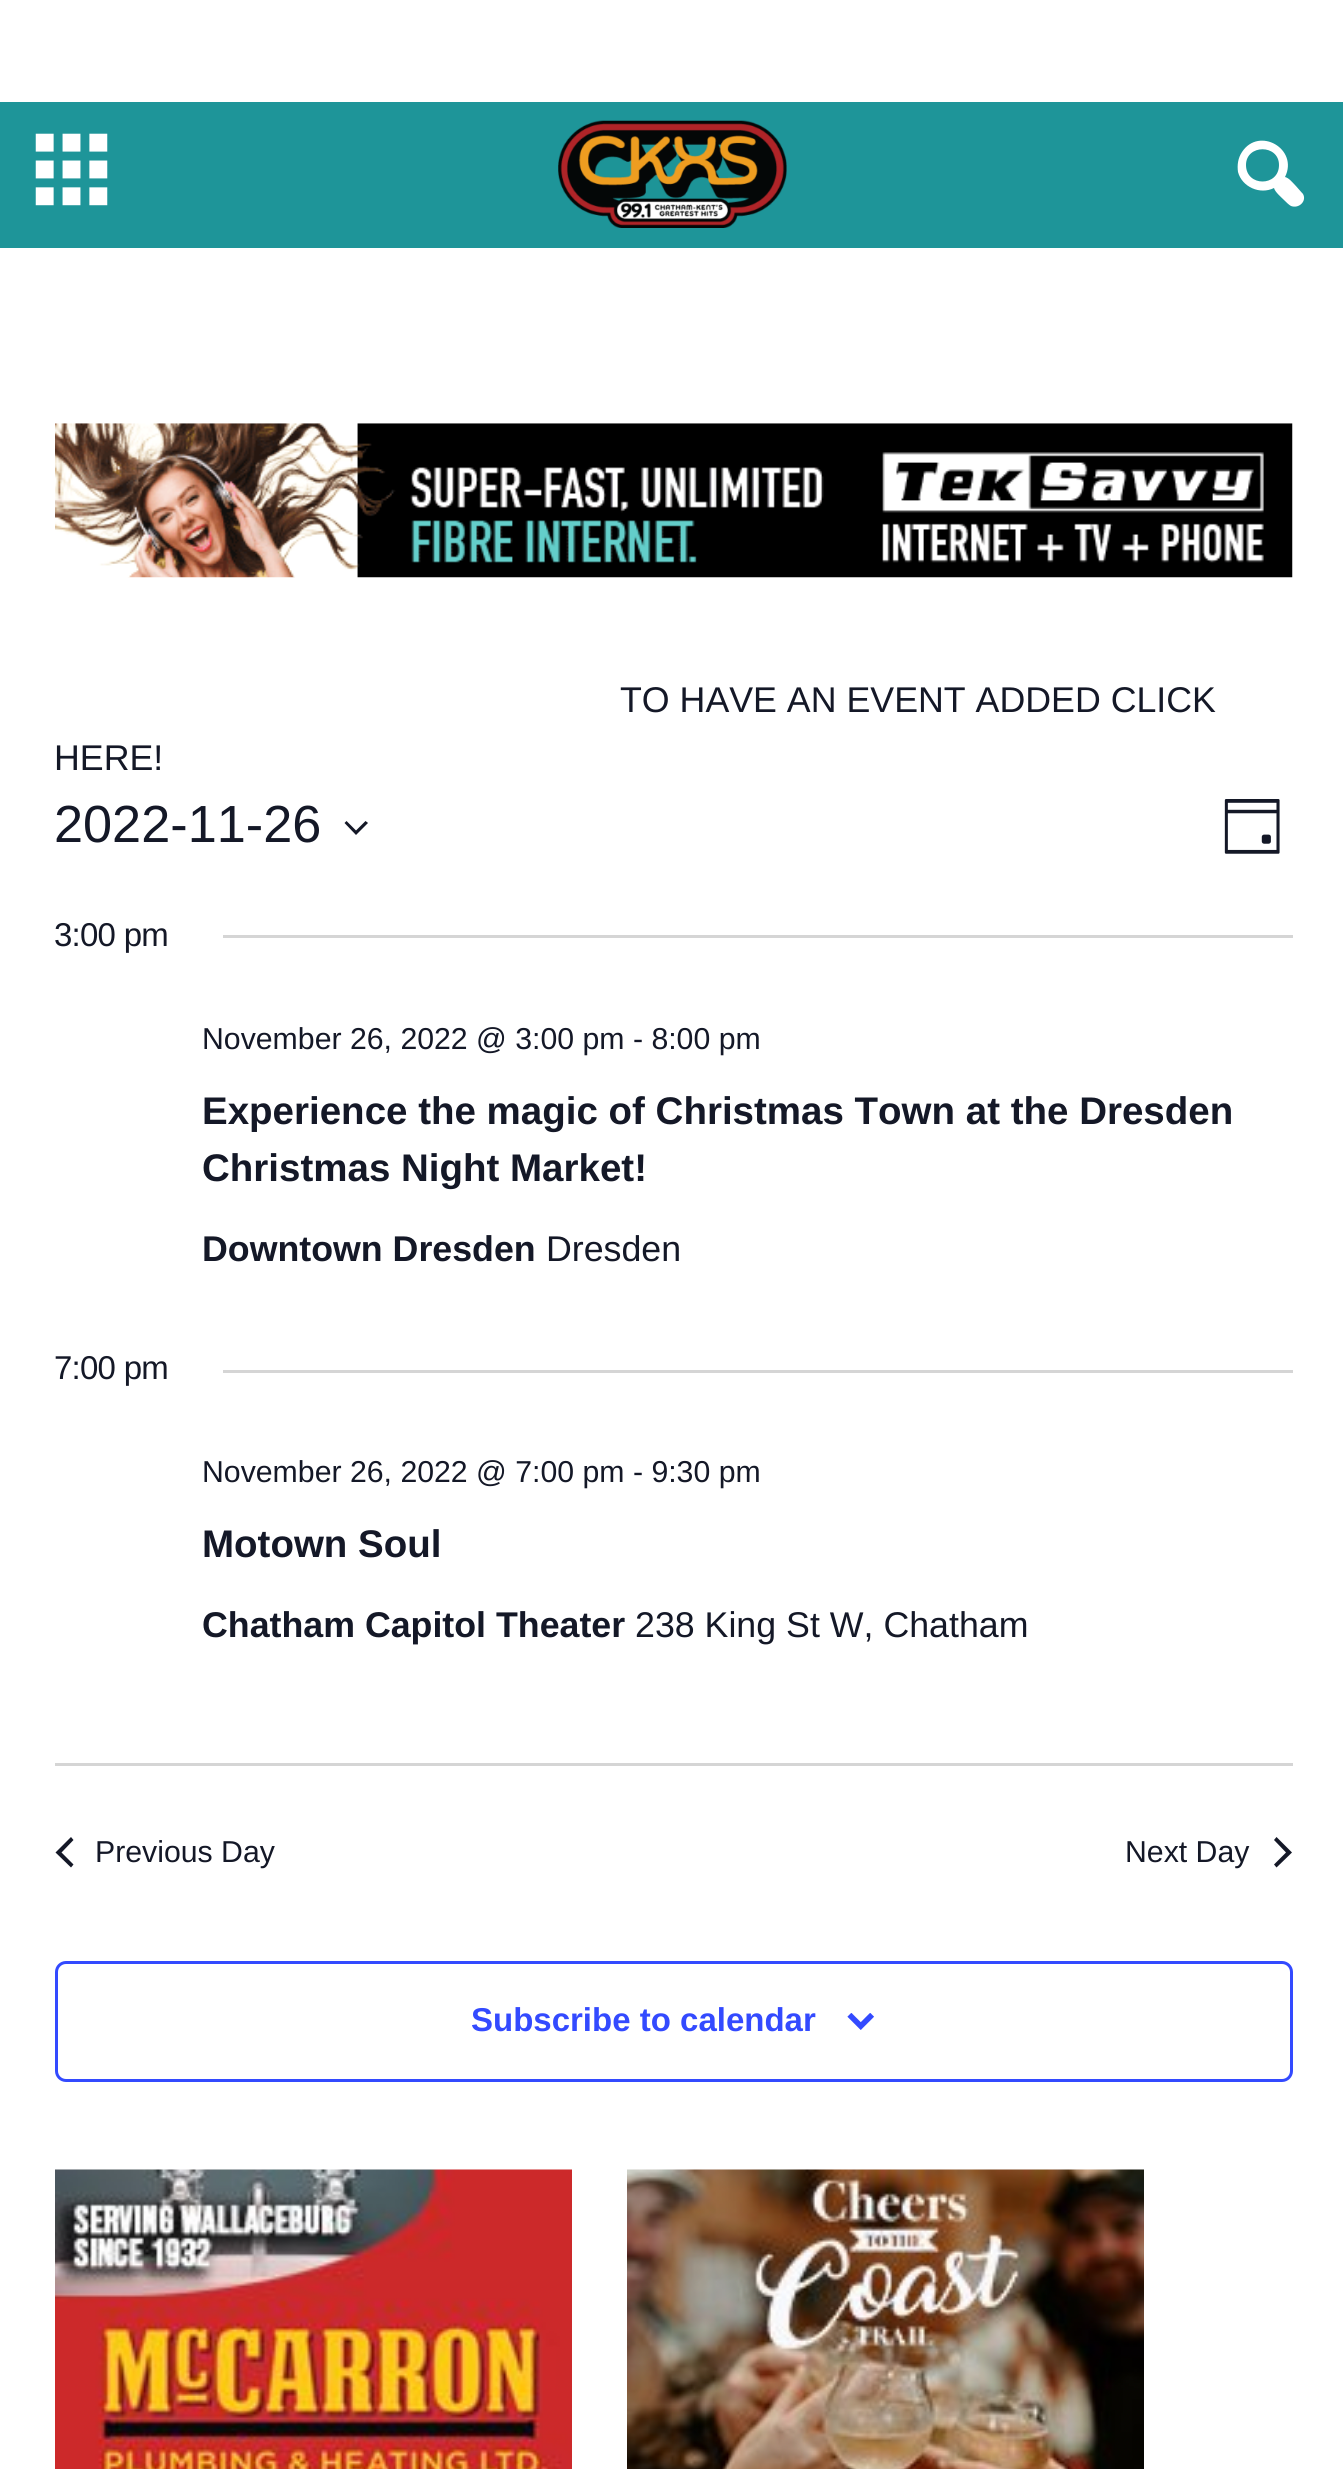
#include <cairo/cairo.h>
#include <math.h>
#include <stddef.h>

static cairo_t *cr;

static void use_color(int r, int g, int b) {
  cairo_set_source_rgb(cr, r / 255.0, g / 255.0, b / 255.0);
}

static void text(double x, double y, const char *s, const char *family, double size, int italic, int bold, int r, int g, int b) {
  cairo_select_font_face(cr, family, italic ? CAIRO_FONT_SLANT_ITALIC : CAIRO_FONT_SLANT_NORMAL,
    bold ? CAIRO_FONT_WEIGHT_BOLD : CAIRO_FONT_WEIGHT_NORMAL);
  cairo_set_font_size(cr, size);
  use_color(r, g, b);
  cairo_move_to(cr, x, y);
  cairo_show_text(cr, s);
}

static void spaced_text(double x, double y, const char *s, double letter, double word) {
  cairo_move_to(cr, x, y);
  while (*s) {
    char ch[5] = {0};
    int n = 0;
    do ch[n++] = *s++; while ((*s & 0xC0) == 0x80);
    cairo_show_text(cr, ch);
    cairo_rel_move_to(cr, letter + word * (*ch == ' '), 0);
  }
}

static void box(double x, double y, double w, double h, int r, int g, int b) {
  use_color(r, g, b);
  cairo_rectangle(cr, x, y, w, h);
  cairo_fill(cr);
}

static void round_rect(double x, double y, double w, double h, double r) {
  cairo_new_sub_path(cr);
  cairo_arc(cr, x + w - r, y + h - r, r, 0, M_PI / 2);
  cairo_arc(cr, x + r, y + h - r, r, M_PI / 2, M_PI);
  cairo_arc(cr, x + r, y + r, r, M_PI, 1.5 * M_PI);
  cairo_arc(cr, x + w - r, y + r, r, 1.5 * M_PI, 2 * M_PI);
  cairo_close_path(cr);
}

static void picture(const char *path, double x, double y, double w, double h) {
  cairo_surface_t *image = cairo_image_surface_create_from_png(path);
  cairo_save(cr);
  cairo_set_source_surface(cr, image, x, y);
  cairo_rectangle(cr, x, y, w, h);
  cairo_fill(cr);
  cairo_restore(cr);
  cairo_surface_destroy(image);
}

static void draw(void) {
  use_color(255, 255, 255);
  cairo_paint(cr);
  box(0, 102, 1343, 146, 30, 149, 153);
  picture("img_01.png", 35, 133, 73, 73);
  picture("img_02.png", 558, 120, 229, 108);
  use_color(255, 255, 255);
  cairo_new_path(cr);
  cairo_move_to(cr, 1238, 172);
  cairo_curve_to(cr, 1237, 165, 1238, 158, 1242, 152);
  cairo_curve_to(cr, 1259, 126, 1299, 149, 1285, 177);
  cairo_curve_to(cr, 1289, 178, 1292, 182, 1295, 185);
  cairo_line_to(cr, 1303, 194);
  cairo_curve_to(cr, 1307, 201, 1299, 209, 1291, 206);
  cairo_curve_to(cr, 1289, 205, 1286, 202, 1284, 200);
  cairo_curve_to(cr, 1281, 197, 1275, 192, 1274, 188);
  cairo_curve_to(cr, 1260, 195, 1242, 187, 1238, 172);
  cairo_close_path(cr);
  cairo_move_to(cr, 1246, 165);
  cairo_curve_to(cr, 1246, 187, 1279, 187, 1279, 165);
  cairo_curve_to(cr, 1279, 144, 1246, 144, 1246, 165);
  cairo_close_path(cr);
  cairo_fill(cr);
  picture("img_03.png", 55, 423, 1238, 155);
  use_color(20, 24, 39);
  cairo_set_fill_rule(cr, CAIRO_FILL_RULE_EVEN_ODD);
  cairo_new_path(cr);
  cairo_move_to(cr, 346.5, 821);
  cairo_line_to(cr, 356, 830.5);
  cairo_line_to(cr, 365.5, 821);
  cairo_line_to(cr, 368, 823);
  cairo_line_to(cr, 356, 835);
  cairo_line_to(cr, 344.5, 823);
  cairo_close_path(cr);
  cairo_fill(cr);
  picture("img_04.png", 1224, 799, 56, 55);
  box(223, 935, 1070, 3, 213, 213, 213);
  box(223, 1370, 1070, 3, 213, 213, 213);
  box(55, 1763, 1238, 3, 213, 213, 213);
  use_color(20, 24, 39);
  cairo_set_fill_rule(cr, CAIRO_FILL_RULE_WINDING);
  cairo_new_path(cr);
  cairo_move_to(cr, 73.5, 1864.5);
  cairo_line_to(cr, 71, 1867.5);
  cairo_line_to(cr, 55.5, 1852.5);
  cairo_line_to(cr, 71, 1837);
  cairo_line_to(cr, 73.5, 1840);
  cairo_line_to(cr, 61.5, 1852.5);
  cairo_close_path(cr);
  cairo_fill(cr);
  cairo_new_path(cr);
  cairo_move_to(cr, 1274, 1840);
  cairo_line_to(cr, 1276.5, 1837);
  cairo_line_to(cr, 1292, 1852.5);
  cairo_line_to(cr, 1276.5, 1867.5);
  cairo_line_to(cr, 1274, 1864.5);
  cairo_line_to(cr, 1286, 1852.5);
  cairo_close_path(cr);
  cairo_fill(cr);
  round_rect(56.5, 1962.5, 1235, 118, 9.5);
  use_color(51, 74, 255);
  cairo_set_line_width(cr, 3);
  cairo_stroke(cr);
  picture("img_05.png", 847, 2013, 27, 17);
  picture("img_06.png", 55, 2169, 517, 300);
  picture("img_07.png", 627, 2169, 517, 300);
  text(620, 712, "TO HAVE AN EVENT ADDED CLICK", "Liberation Sans", 35.75, 0, 0, 20, 24, 39);
  text(54, 770, "HERE!", "Liberation Sans", 35.75, 0, 0, 20, 24, 39);
  text(54, 842, "2022-11-26", "Liberation Sans", 52.25, 0, 0, 20, 24, 39);
  cairo_set_font_size(cr, 33);
  spaced_text(54, 946, "3:00 pm", -0.75, 0);
  text(202, 1049, "November 26, 2022 @ 3:00 pm - 8:00 pm", "Liberation Sans", 30.25, 0, 0, 20, 24, 39);
  text(202, 1124, "Experience the magic of Christmas Town at the Dresden", "Liberation Sans", 38.5, 0, 1, 20, 24, 39);
  text(202, 1181, "Christmas Night Market!", "Liberation Sans", 38.5, 0, 1, 20, 24, 39);
  text(202, 1261, "Downtown Dresden", "Liberation Sans", 35.75, 0, 1, 20, 24, 39);
  text(546, 1261, "Dresden", "Liberation Sans", 35.75, 0, 0, 20, 24, 39);
  cairo_set_font_size(cr, 33);
  spaced_text(54, 1379, "7:00 pm", -0.75, 0);
  text(202, 1482, "November 26, 2022 @ 7:00 pm - 9:30 pm", "Liberation Sans", 30.25, 0, 0, 20, 24, 39);
  text(202, 1557, "Motown Soul", "Liberation Sans", 38.5, 0, 1, 20, 24, 39);
  text(202, 1637, "Chatham Capitol Theater", "Liberation Sans", 35.75, 0, 1, 20, 24, 39);
  text(635, 1637, "238 King St W, Chatham", "Liberation Sans", 35.75, 0, 0, 20, 24, 39);
  text(95, 1862, "Previous Day", "Liberation Sans", 30.25, 0, 0, 20, 24, 39);
  text(1125, 1862, "Next Day", "Liberation Sans", 30.25, 0, 0, 20, 24, 39);
  text(471, 2031, "Subscribe to calendar", "Liberation Sans", 33, 0, 1, 51, 74, 255);
}

int main(void) {
  cairo_surface_t *surface = cairo_image_surface_create(CAIRO_FORMAT_RGB24, 1343, 2469);
  cr = cairo_create(surface);
  cairo_font_options_t *options = cairo_font_options_create();
  cairo_font_options_set_hint_metrics(options, CAIRO_HINT_METRICS_OFF);
  cairo_font_options_set_hint_style(options, CAIRO_HINT_STYLE_NONE);
  cairo_set_font_options(cr, options);
  cairo_set_miter_limit(cr, 4);
  draw();
  cairo_surface_write_to_png(surface, "out.png");
  cairo_font_options_destroy(options);
  cairo_destroy(cr);
  cairo_surface_destroy(surface);
  return 0;
}
